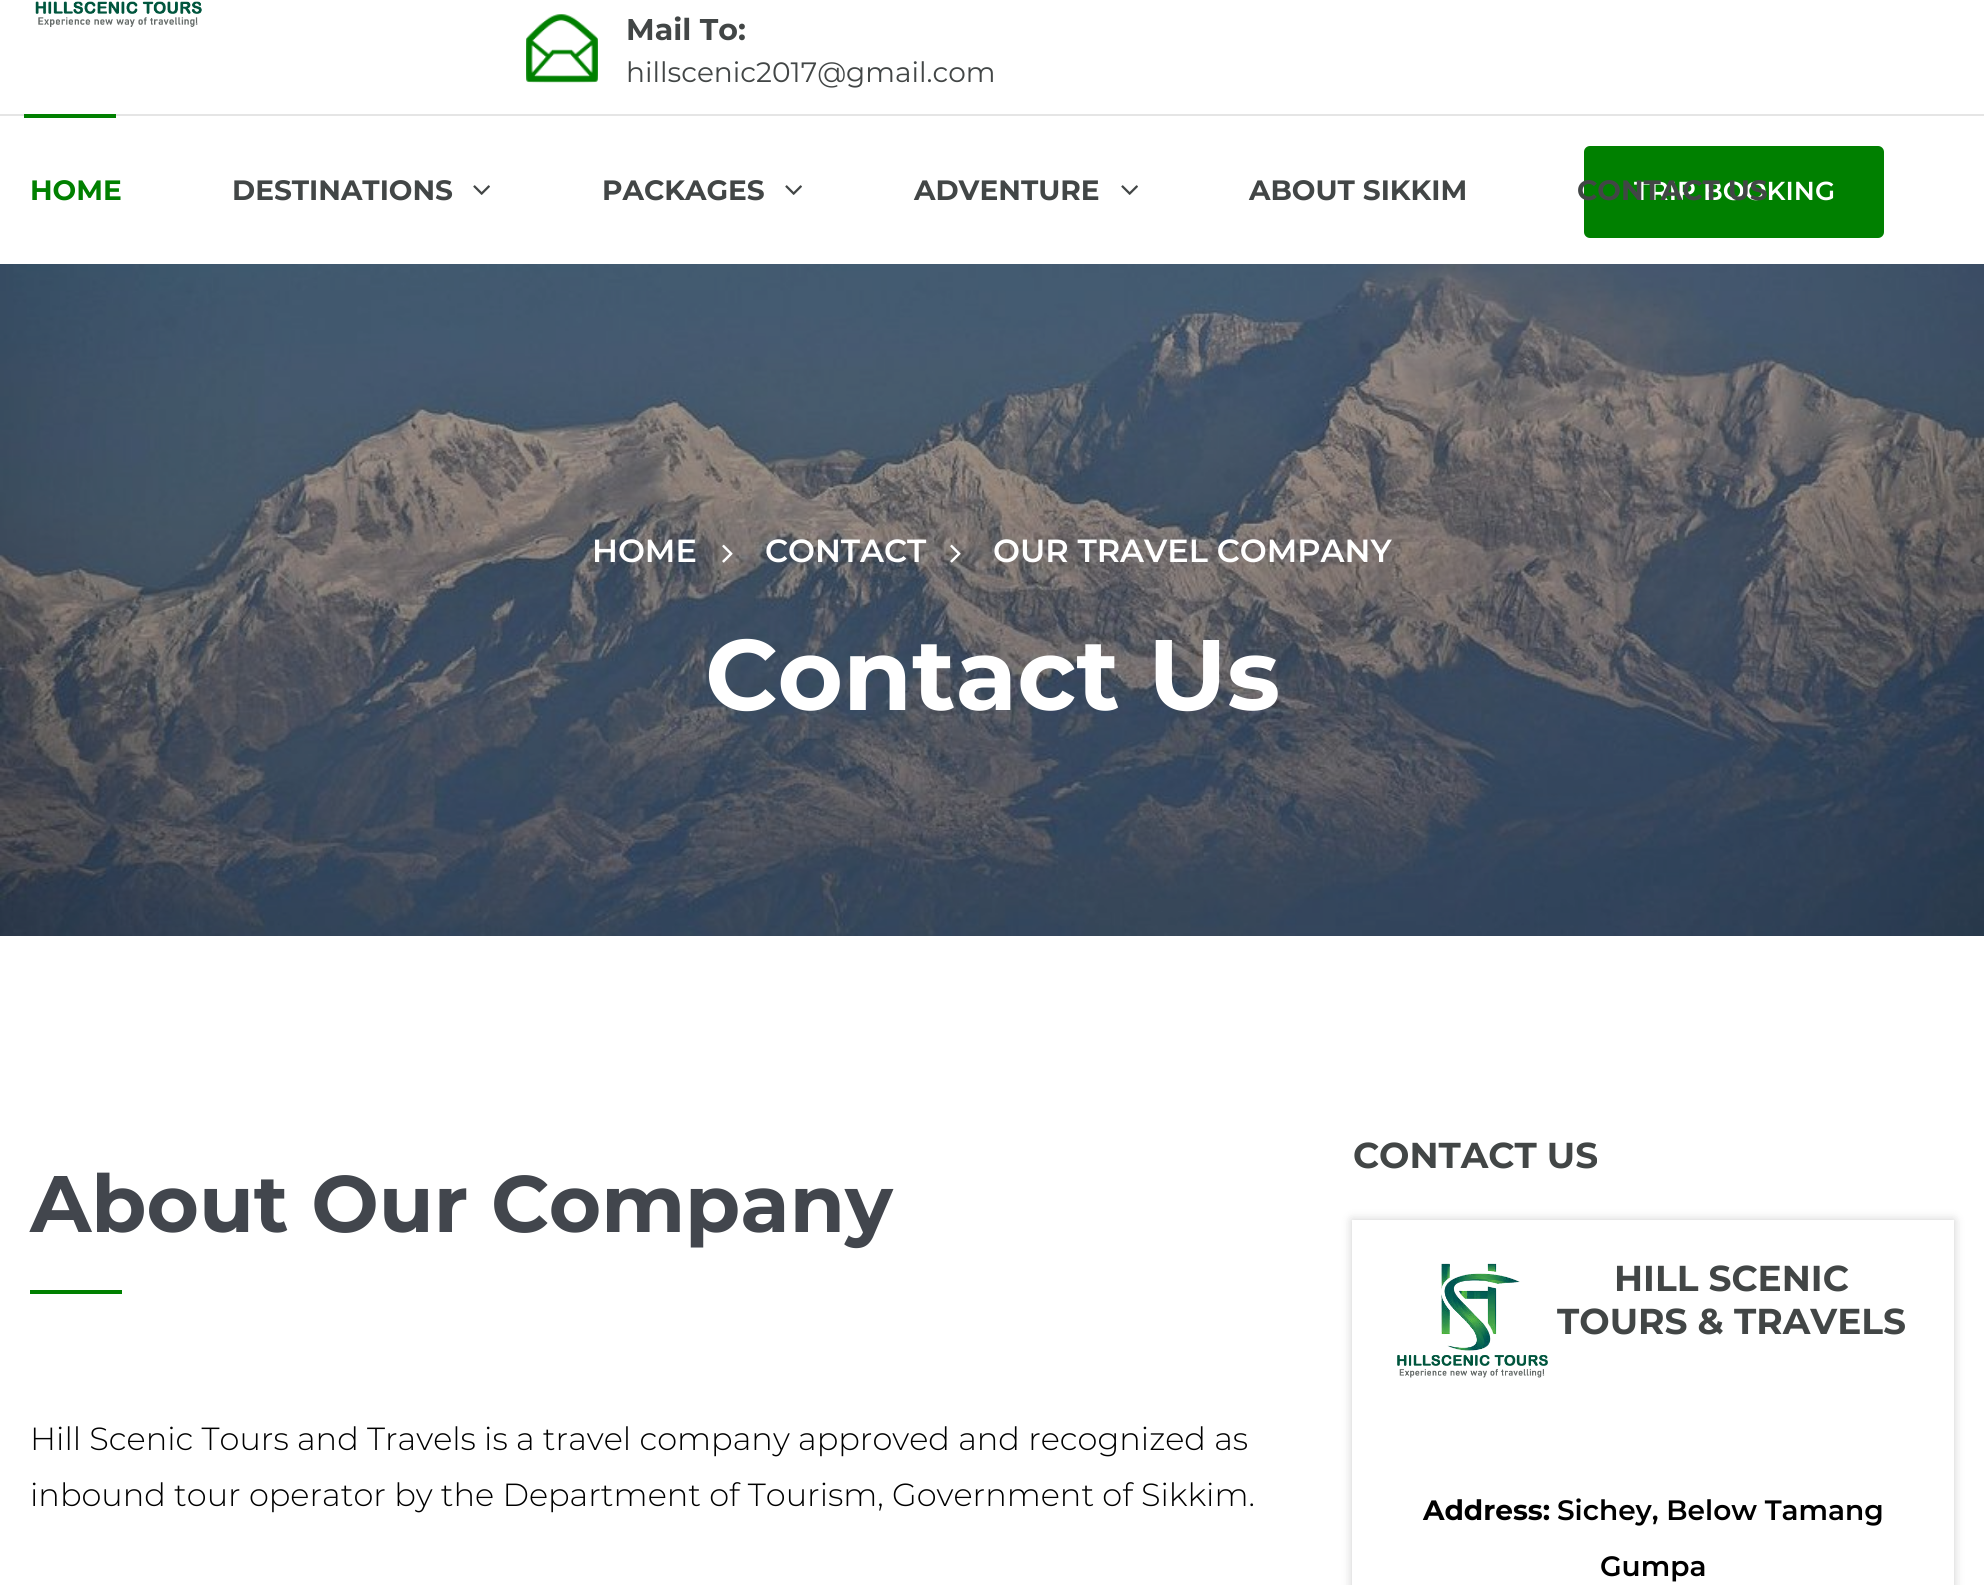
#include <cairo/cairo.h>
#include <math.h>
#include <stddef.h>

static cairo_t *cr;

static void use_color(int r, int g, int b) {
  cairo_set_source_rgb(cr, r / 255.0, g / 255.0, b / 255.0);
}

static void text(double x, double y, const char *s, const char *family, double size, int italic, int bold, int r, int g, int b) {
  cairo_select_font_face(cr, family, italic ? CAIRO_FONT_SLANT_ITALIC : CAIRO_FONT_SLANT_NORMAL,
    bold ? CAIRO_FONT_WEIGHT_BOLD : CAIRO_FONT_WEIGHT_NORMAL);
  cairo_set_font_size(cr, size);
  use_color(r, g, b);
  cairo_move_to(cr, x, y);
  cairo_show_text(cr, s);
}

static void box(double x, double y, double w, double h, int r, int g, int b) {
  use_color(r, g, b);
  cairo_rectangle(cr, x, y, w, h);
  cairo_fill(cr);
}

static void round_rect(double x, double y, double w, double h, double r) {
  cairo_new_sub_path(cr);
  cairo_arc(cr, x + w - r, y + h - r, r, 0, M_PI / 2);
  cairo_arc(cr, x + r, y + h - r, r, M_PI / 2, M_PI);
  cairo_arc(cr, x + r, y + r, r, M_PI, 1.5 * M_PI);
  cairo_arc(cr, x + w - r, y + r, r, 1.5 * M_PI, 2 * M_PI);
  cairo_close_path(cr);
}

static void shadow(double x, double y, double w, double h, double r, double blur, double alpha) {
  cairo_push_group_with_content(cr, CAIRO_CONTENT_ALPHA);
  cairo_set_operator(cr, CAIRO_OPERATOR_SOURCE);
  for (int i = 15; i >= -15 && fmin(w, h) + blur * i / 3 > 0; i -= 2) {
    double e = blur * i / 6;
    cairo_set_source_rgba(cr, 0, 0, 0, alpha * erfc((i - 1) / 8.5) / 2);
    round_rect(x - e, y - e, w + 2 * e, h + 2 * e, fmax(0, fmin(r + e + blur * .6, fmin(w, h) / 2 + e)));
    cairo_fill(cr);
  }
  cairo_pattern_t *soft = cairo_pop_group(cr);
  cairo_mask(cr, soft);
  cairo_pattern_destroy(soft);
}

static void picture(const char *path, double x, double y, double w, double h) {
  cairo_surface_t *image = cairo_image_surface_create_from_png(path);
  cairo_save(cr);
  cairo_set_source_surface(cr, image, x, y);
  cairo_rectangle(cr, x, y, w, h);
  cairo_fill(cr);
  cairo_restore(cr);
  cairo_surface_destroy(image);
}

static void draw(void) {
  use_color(255, 255, 255);
  cairo_paint(cr);
  picture("img_01.png", 35, 1, 167, 26);
  picture("img_02.png", 526, 14, 72, 69);
  box(0, 114, 1984, 2, 229, 229, 229);
  box(24, 114, 92, 4, 0, 128, 0);
  picture("img_03.png", 473, 185, 17, 10);
  picture("img_03.png", 785, 185, 17, 10);
  picture("img_03.png", 1121, 185, 17, 10);
  round_rect(1584, 146, 300, 92, 6);
  cairo_fill(cr);
  picture("img_04.png", 0, 264, 1984, 672);
  picture("img_05.png", 722, 544, 11, 19);
  picture("img_06.png", 950, 544, 11, 19);
  box(30, 1290, 92, 4, 0, 128, 0);
  cairo_save(cr);
  cairo_set_fill_rule(cr, CAIRO_FILL_RULE_EVEN_ODD);
  cairo_new_path(cr);
  cairo_move_to(cr, 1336, 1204);
  cairo_line_to(cr, 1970, 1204);
  cairo_line_to(cr, 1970, 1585);
  cairo_line_to(cr, 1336, 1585);
  cairo_close_path(cr);
  cairo_move_to(cr, 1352, 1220);
  cairo_line_to(cr, 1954, 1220);
  cairo_line_to(cr, 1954, 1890);
  cairo_line_to(cr, 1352, 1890);
  cairo_close_path(cr);
  cairo_clip(cr);
  use_color(0, 0, 0);
  shadow(1352, 1220, 602, 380, 0, 5, 0.2);
  cairo_restore(cr);
  picture("img_07.png", 1397, 1263, 151, 115);
  text(626, 40, "Mail To:", "Montserrat", 30, 0, 1, 66, 70, 70);
  text(626, 82, "hillscenic2017@gmail.com", "Montserrat", 28, 0, 0, 66, 70, 70);
  text(30, 200, "HOME", "Montserrat", 28, 0, 1, 0, 128, 0);
  text(232, 200, "DESTINATIONS", "Montserrat", 28, 0, 1, 66, 70, 70);
  text(602, 200, "PACKAGES", "Montserrat", 28, 0, 1, 66, 70, 70);
  text(914, 200, "ADVENTURE", "Montserrat", 28, 0, 1, 66, 70, 70);
  text(1249, 200, "ABOUT SIKKIM", "Montserrat", 28, 0, 1, 66, 70, 70);
  text(1634, 200, "TRIP BOOKING", "Montserrat SemiBold", 26, 0, 0, 255, 255, 255);
  text(1577, 200, "CONTACT US", "Montserrat", 28, 0, 1, 66, 70, 70);
  text(592, 562, "HOME", "Montserrat SemiBold", 32, 0, 0, 255, 255, 255);
  text(765, 562, "CONTACT", "Montserrat SemiBold", 32, 0, 0, 255, 255, 255);
  text(993, 562, "OUR TRAVEL COMPANY", "Montserrat SemiBold", 32, 0, 0, 255, 255, 255);
  text(705, 710, "Contact Us", "Montserrat", 100, 0, 1, 255, 255, 255);
  text(30, 1232, "About Our Company", "Montserrat", 80, 0, 1, 66, 70, 77);
  text(30, 1450, "Hill Scenic Tours and Travels is a travel company approved and recognized as", "Montserrat Light", 32, 0, 0, 0, 0, 0);
  text(30, 1506, "inbound tour operator by the Department of Tourism, Government of Sikkim.", "Montserrat Light", 32, 0, 0, 0, 0, 0);
  text(1353, 1168, "CONTACT US", "Montserrat", 36, 0, 1, 66, 70, 70);
  text(1614, 1291, "HILL SCENIC", "Montserrat", 36, 0, 1, 66, 70, 70);
  text(1557, 1334, "TOURS & TRAVELS", "Montserrat", 36, 0, 1, 66, 70, 70);
  text(1423, 1520, "Address:", "Montserrat", 28, 0, 1, 0, 0, 0);
  text(1557, 1520, "Sichey, Below Tamang", "Montserrat SemiBold", 28, 0, 0, 0, 0, 0);
  text(1600, 1576, "Gumpa", "Montserrat SemiBold", 28, 0, 0, 0, 0, 0);
}

int main(void) {
  cairo_surface_t *surface = cairo_image_surface_create(CAIRO_FORMAT_RGB24, 1984, 1585);
  cr = cairo_create(surface);
  cairo_font_options_t *options = cairo_font_options_create();
  cairo_font_options_set_hint_metrics(options, CAIRO_HINT_METRICS_OFF);
  cairo_font_options_set_hint_style(options, CAIRO_HINT_STYLE_NONE);
  cairo_set_font_options(cr, options);
  cairo_set_miter_limit(cr, 4);
  draw();
  cairo_surface_write_to_png(surface, "out.png");
  cairo_font_options_destroy(options);
  cairo_destroy(cr);
  cairo_surface_destroy(surface);
  return 0;
}
